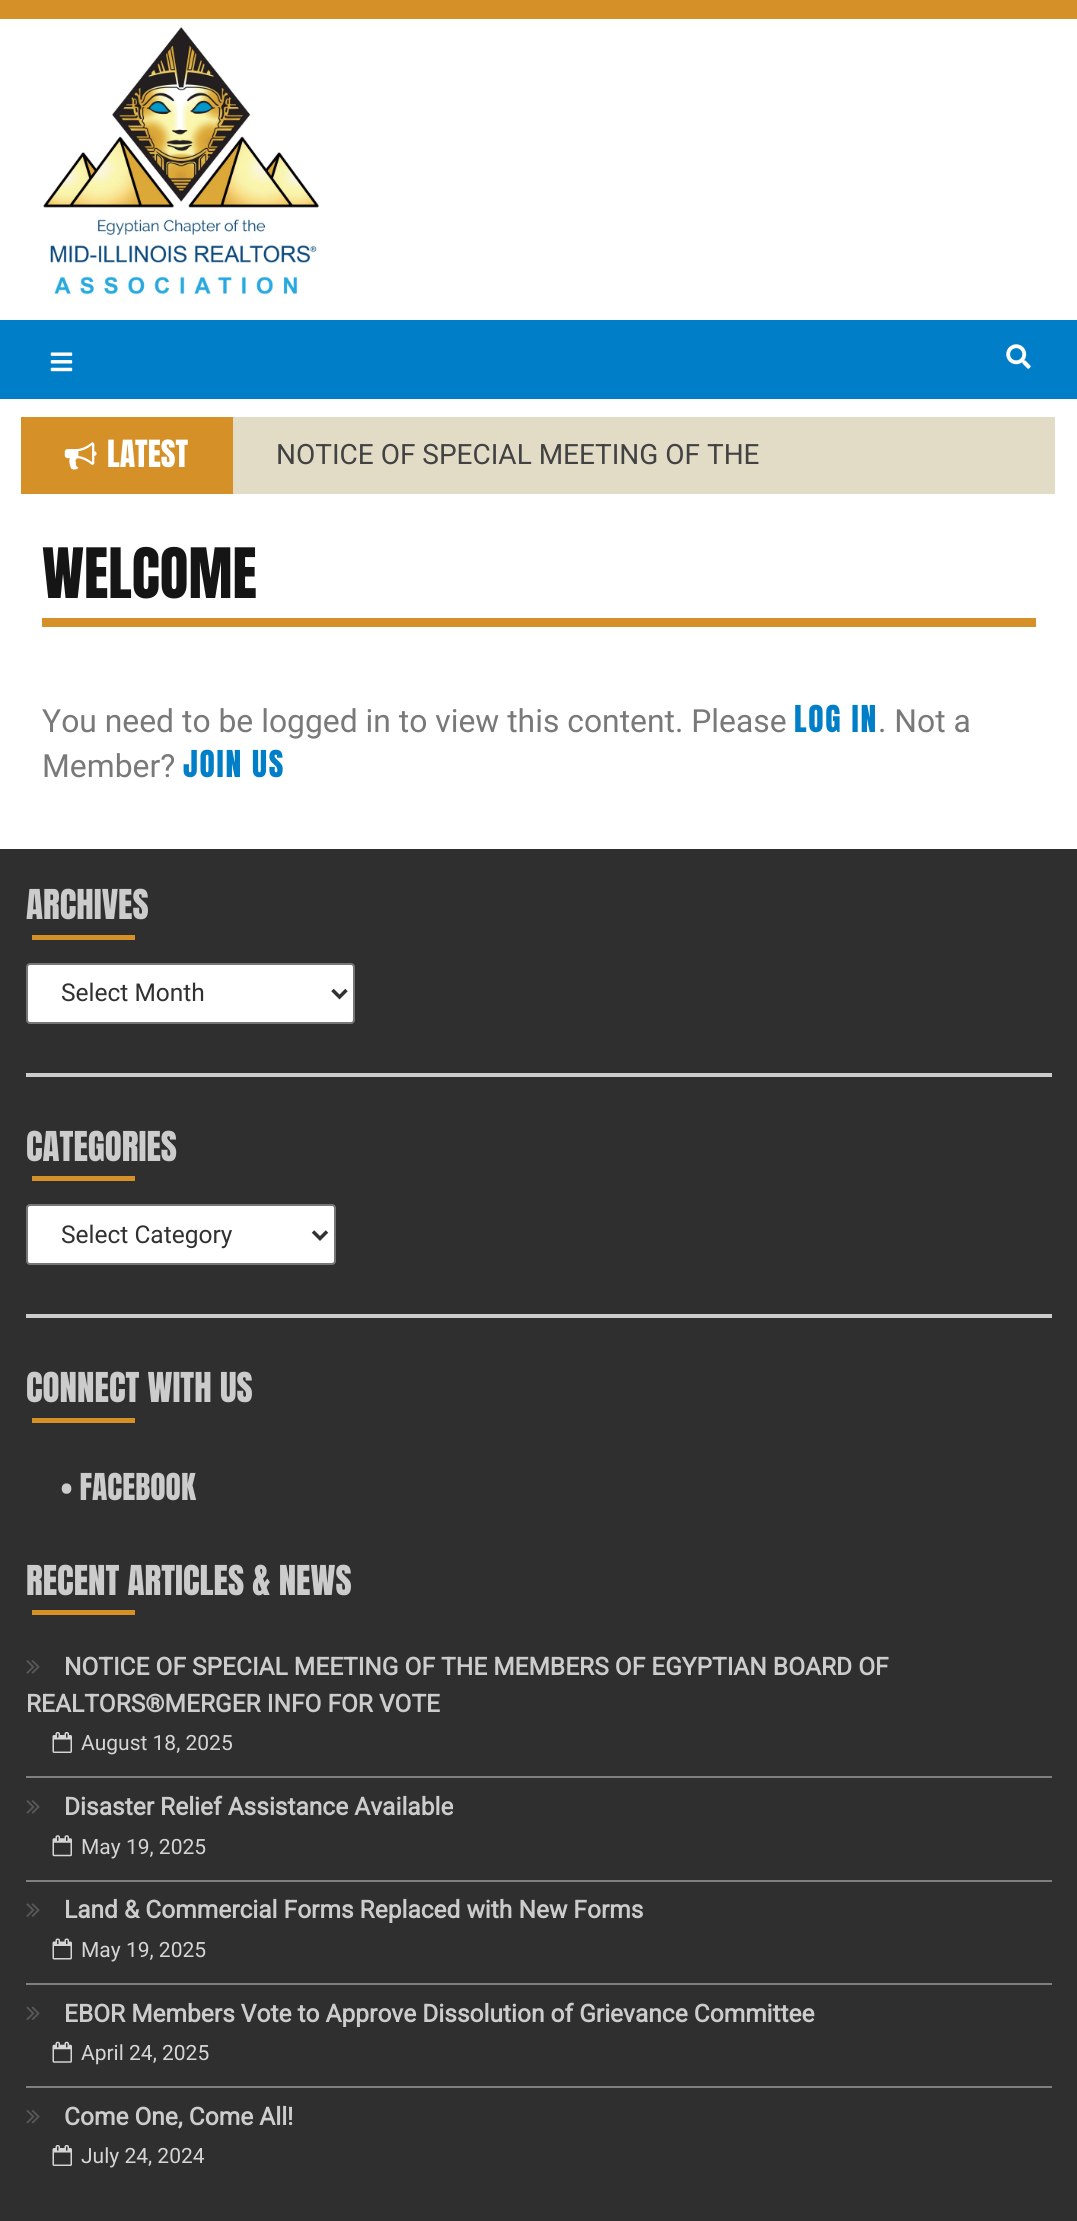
#include <cairo/cairo.h>
#include <math.h>
#include <stddef.h>

static cairo_t *cr;

static void use_color(int r, int g, int b) {
  cairo_set_source_rgb(cr, r / 255.0, g / 255.0, b / 255.0);
}

static void text(double x, double y, const char *s, const char *family, double size, int italic, int bold, int r, int g, int b) {
  cairo_select_font_face(cr, family, italic ? CAIRO_FONT_SLANT_ITALIC : CAIRO_FONT_SLANT_NORMAL,
    bold ? CAIRO_FONT_WEIGHT_BOLD : CAIRO_FONT_WEIGHT_NORMAL);
  cairo_set_font_size(cr, size);
  use_color(r, g, b);
  cairo_move_to(cr, x, y);
  cairo_show_text(cr, s);
}

static void spaced_text(double x, double y, const char *s, double letter, double word) {
  cairo_move_to(cr, x, y);
  while (*s) {
    char ch[5] = {0};
    int n = 0;
    do ch[n++] = *s++; while ((*s & 0xC0) == 0x80);
    cairo_show_text(cr, ch);
    cairo_rel_move_to(cr, letter + word * (*ch == ' '), 0);
  }
}

static void box(double x, double y, double w, double h, int r, int g, int b) {
  use_color(r, g, b);
  cairo_rectangle(cr, x, y, w, h);
  cairo_fill(cr);
}

static void round_rect(double x, double y, double w, double h, double r) {
  cairo_new_sub_path(cr);
  cairo_arc(cr, x + w - r, y + h - r, r, 0, M_PI / 2);
  cairo_arc(cr, x + r, y + h - r, r, M_PI / 2, M_PI);
  cairo_arc(cr, x + r, y + r, r, M_PI, 1.5 * M_PI);
  cairo_arc(cr, x + w - r, y + r, r, 1.5 * M_PI, 2 * M_PI);
  cairo_close_path(cr);
}

static void picture(const char *path, double x, double y, double w, double h) {
  cairo_surface_t *image = cairo_image_surface_create_from_png(path);
  cairo_save(cr);
  cairo_set_source_surface(cr, image, x, y);
  cairo_rectangle(cr, x, y, w, h);
  cairo_fill(cr);
  cairo_restore(cr);
  cairo_surface_destroy(image);
}

static void draw(void) {
  use_color(255, 255, 255);
  cairo_paint(cr);
  box(0, 0, 1077, 19, 214, 144, 40);
  picture("img_01.png", 43, 27, 276, 268);
  box(0, 320, 1077, 79, 0, 127, 200);
  picture("img_02.png", 50, 352, 23, 20);
  picture("img_03.png", 1006, 344, 25, 25);
  box(233, 417, 822, 77, 226, 220, 199);
  box(21, 417, 212, 77, 214, 144, 40);
  picture("img_04.png", 64, 442, 33, 28);
  box(42, 618, 994, 9, 214, 144, 40);
  box(0, 849, 1077, 1372, 47, 47, 47);
  box(32, 935, 103, 5, 214, 144, 40);
  use_color(255, 255, 255);
  round_rect(27, 964, 327, 59, 3);
  cairo_fill_preserve(cr);
  use_color(118, 118, 118);
  cairo_stroke(cr);
  cairo_new_path(cr);
  cairo_move_to(cr, 332.5, 990);
  cairo_line_to(cr, 339.5, 997);
  cairo_line_to(cr, 346.5, 990);
  use_color(49, 49, 49);
  cairo_set_line_width(cr, 3.5);
  cairo_stroke(cr);
  box(26, 1073, 1026, 4, 204, 204, 204);
  box(32, 1176, 103, 5, 214, 144, 40);
  use_color(255, 255, 255);
  round_rect(27, 1205, 308, 59, 3);
  cairo_fill_preserve(cr);
  use_color(118, 118, 118);
  cairo_set_line_width(cr, 2);
  cairo_stroke(cr);
  cairo_new_path(cr);
  cairo_move_to(cr, 313, 1231.5);
  cairo_line_to(cr, 320, 1238.5);
  cairo_line_to(cr, 327, 1231.5);
  use_color(49, 49, 49);
  cairo_set_line_width(cr, 3.5);
  cairo_stroke(cr);
  box(26, 1314, 1026, 4, 204, 204, 204);
  box(32, 1418, 103, 5, 214, 144, 40);
  box(32, 1610, 103, 5, 214, 144, 40);
  picture("img_05.png", 26, 1660, 14, 14);
  picture("img_06.png", 52, 1732, 20, 21);
  box(26, 1776, 1026, 2, 128, 128, 128);
  picture("img_05.png", 26, 1800, 14, 14);
  picture("img_07.png", 52, 1835, 20, 22);
  box(26, 1880, 1026, 2, 128, 128, 128);
  picture("img_08.png", 26, 1903, 14, 14);
  picture("img_09.png", 52, 1938, 20, 22);
  box(26, 1983, 1026, 2, 128, 128, 128);
  picture("img_10.png", 26, 2006, 14, 14);
  picture("img_11.png", 52, 2041, 20, 22);
  box(26, 2086, 1026, 2, 128, 128, 128);
  picture("img_12.png", 26, 2110, 14, 14);
  picture("img_06.png", 52, 2145, 20, 21);
  text(107, 467, "LATEST", "Anton", 31.85, 0, 0, 255, 255, 255);
  text(276, 464, "NOTICE OF SPECIAL MEETING OF THE", "Roboto", 28, 0, 0, 66, 66, 66);
  text(42, 598, "WELCOME", "Anton", 59, 0, 0, 21, 21, 21);
  text(42, 732, "You need to be logged in to view this content. Please", "Roboto", 31.85, 0, 0, 121, 121, 121);
  cairo_select_font_face(cr, "Anton", CAIRO_FONT_SLANT_NORMAL, CAIRO_FONT_WEIGHT_NORMAL);
  cairo_set_font_size(cr, 31.5);
  use_color(0, 127, 200);
  spaced_text(794, 732, "LOG IN", 1.75, 0);
  text(878, 732, ". Not a", "Roboto", 31.85, 0, 0, 121, 121, 121);
  text(42, 777, "Member?", "Roboto", 31.85, 0, 0, 121, 121, 121);
  cairo_select_font_face(cr, "Anton", CAIRO_FONT_SLANT_NORMAL, CAIRO_FONT_WEIGHT_NORMAL);
  cairo_set_font_size(cr, 31.5);
  use_color(0, 127, 200);
  spaced_text(183, 777, "JOIN US", 1.75, 0);
  text(26, 919, "ARCHIVES", "Anton", 35, 0, 0, 204, 204, 204);
  text(61, 1001, "Select Month", "Roboto", 24.5, 0, 0, 49, 49, 49);
  text(26, 1161, "CATEGORIES", "Anton", 35, 0, 0, 204, 204, 204);
  text(61, 1243, "Select Category", "Roboto", 24.5, 0, 0, 49, 49, 49);
  text(26, 1402, "CONNECT WITH US", "Anton", 35, 0, 0, 204, 204, 204);
  text(61, 1500, "• FACEBOOK", "Anton", 31.5, 0, 0, 204, 204, 204);
  text(26, 1595, "RECENT ARTICLES & NEWS", "Anton", 35, 0, 0, 204, 204, 204);
  text(64, 1675, "NOTICE OF SPECIAL MEETING OF THE MEMBERS OF EGYPTIAN BOARD OF", "Roboto", 24.5, 0, 1, 204, 204, 204);
  text(26, 1712, "REALTORS®MERGER INFO FOR VOTE", "Roboto", 24.5, 0, 1, 204, 204, 204);
  text(81, 1750, "August 18, 2025", "Roboto", 21, 0, 0, 213, 213, 213);
  text(64, 1815, "Disaster Relief Assistance Available", "Roboto", 24.5, 0, 1, 204, 204, 204);
  text(81, 1854, "May 19, 2025", "Roboto", 21, 0, 0, 213, 213, 213);
  text(64, 1918, "Land & Commercial Forms Replaced with New Forms", "Roboto", 24.5, 0, 1, 204, 204, 204);
  text(81, 1957, "May 19, 2025", "Roboto", 21, 0, 0, 213, 213, 213);
  text(64, 2022, "EBOR Members Vote to Approve Dissolution of Grievance Committee", "Roboto", 24.5, 0, 1, 204, 204, 204);
  text(81, 2060, "April 24, 2025", "Roboto", 21, 0, 0, 213, 213, 213);
  text(64, 2125, "Come One, Come All!", "Roboto", 24.5, 0, 1, 204, 204, 204);
  text(81, 2163, "July 24, 2024", "Roboto", 21, 0, 0, 213, 213, 213);
}

int main(void) {
  cairo_surface_t *surface = cairo_image_surface_create(CAIRO_FORMAT_RGB24, 1077, 2221);
  cr = cairo_create(surface);
  cairo_font_options_t *options = cairo_font_options_create();
  cairo_font_options_set_hint_metrics(options, CAIRO_HINT_METRICS_OFF);
  cairo_font_options_set_hint_style(options, CAIRO_HINT_STYLE_NONE);
  cairo_set_font_options(cr, options);
  cairo_set_miter_limit(cr, 4);
  draw();
  cairo_surface_write_to_png(surface, "out.png");
  cairo_font_options_destroy(options);
  cairo_destroy(cr);
  cairo_surface_destroy(surface);
  return 0;
}
